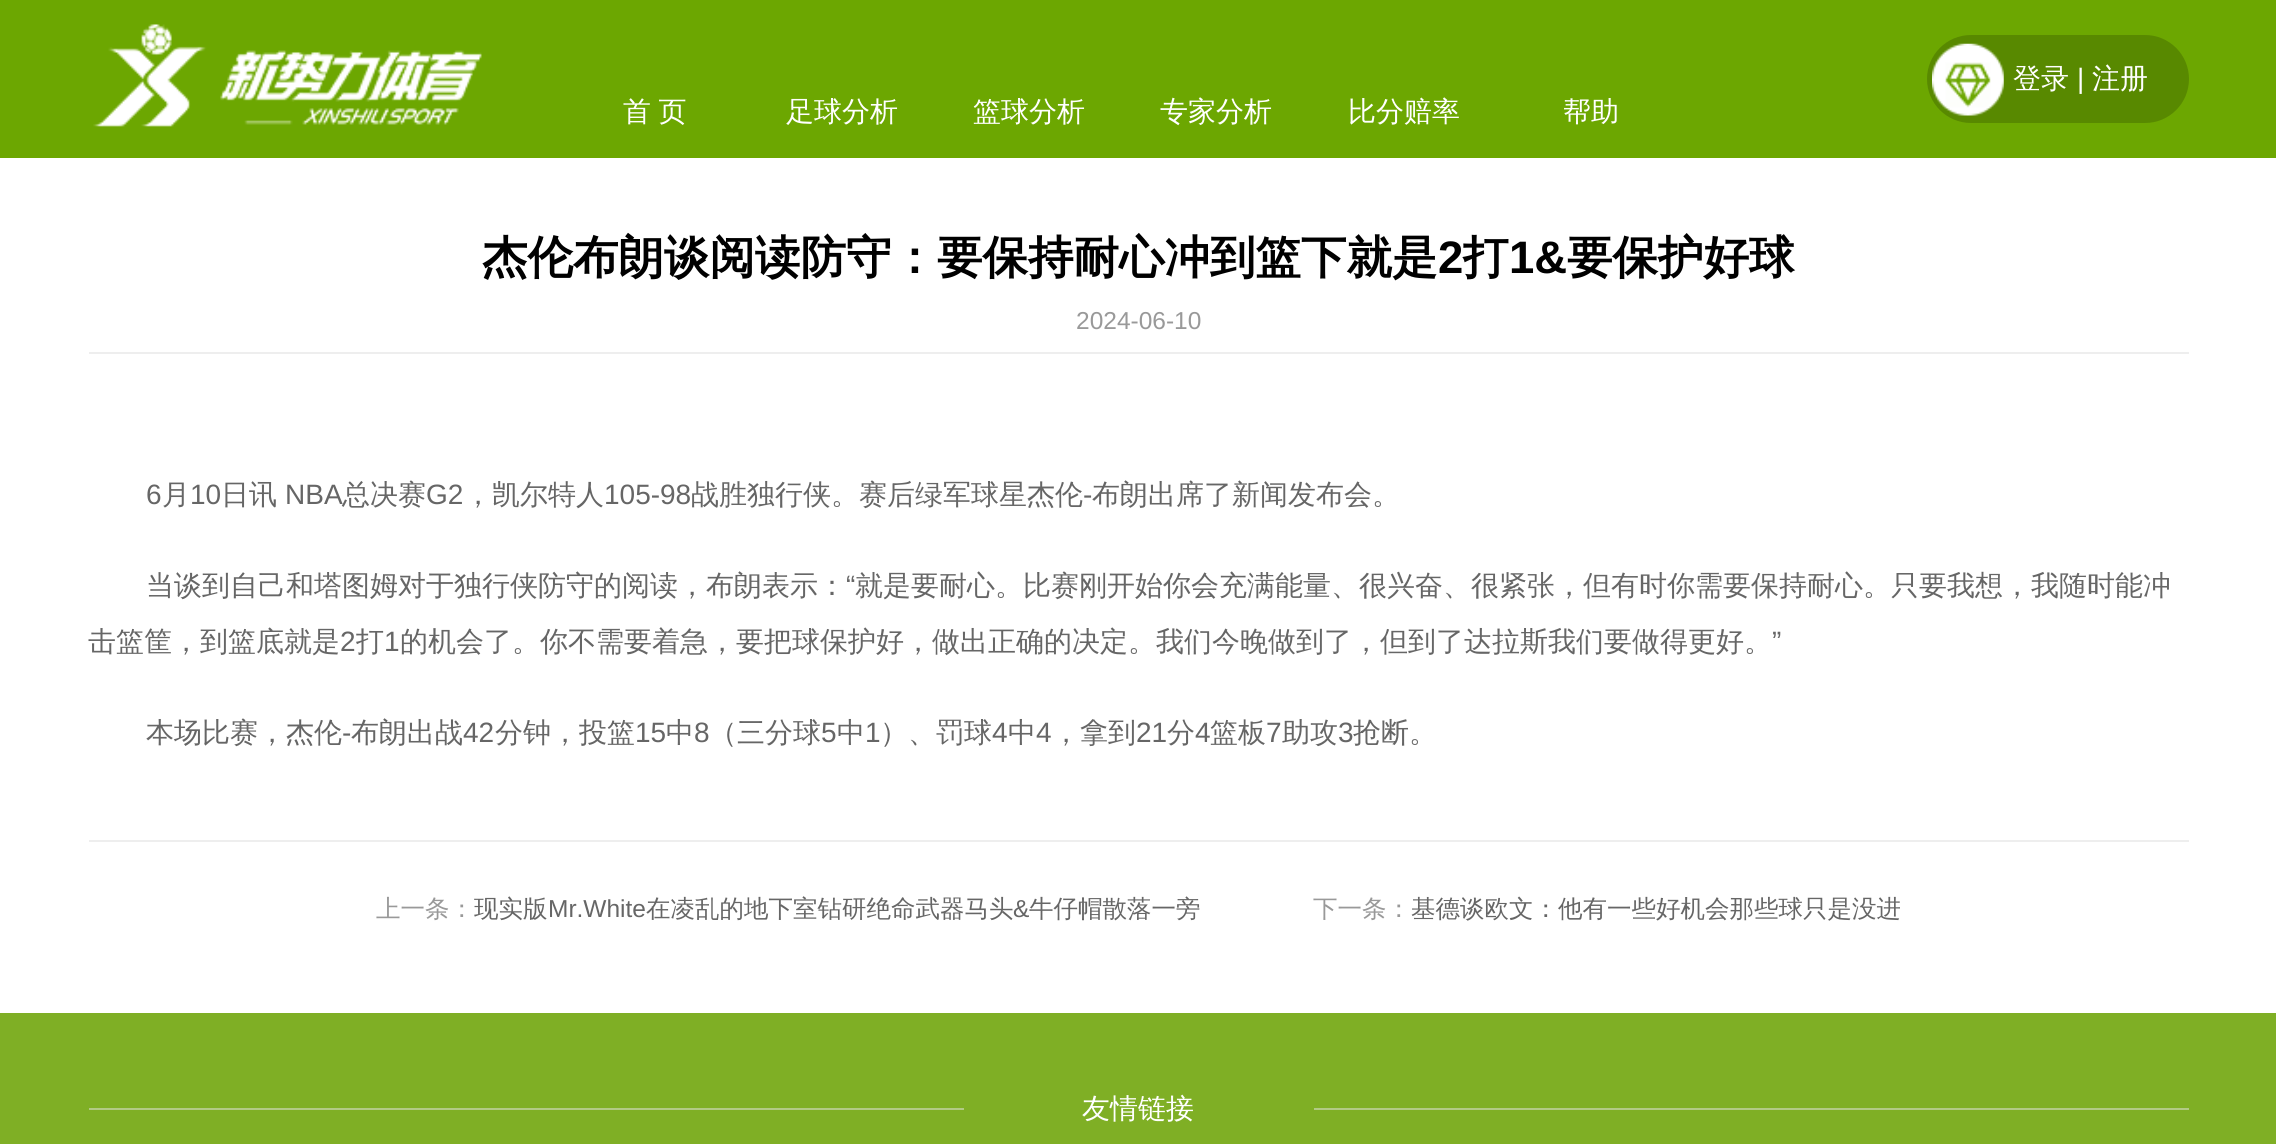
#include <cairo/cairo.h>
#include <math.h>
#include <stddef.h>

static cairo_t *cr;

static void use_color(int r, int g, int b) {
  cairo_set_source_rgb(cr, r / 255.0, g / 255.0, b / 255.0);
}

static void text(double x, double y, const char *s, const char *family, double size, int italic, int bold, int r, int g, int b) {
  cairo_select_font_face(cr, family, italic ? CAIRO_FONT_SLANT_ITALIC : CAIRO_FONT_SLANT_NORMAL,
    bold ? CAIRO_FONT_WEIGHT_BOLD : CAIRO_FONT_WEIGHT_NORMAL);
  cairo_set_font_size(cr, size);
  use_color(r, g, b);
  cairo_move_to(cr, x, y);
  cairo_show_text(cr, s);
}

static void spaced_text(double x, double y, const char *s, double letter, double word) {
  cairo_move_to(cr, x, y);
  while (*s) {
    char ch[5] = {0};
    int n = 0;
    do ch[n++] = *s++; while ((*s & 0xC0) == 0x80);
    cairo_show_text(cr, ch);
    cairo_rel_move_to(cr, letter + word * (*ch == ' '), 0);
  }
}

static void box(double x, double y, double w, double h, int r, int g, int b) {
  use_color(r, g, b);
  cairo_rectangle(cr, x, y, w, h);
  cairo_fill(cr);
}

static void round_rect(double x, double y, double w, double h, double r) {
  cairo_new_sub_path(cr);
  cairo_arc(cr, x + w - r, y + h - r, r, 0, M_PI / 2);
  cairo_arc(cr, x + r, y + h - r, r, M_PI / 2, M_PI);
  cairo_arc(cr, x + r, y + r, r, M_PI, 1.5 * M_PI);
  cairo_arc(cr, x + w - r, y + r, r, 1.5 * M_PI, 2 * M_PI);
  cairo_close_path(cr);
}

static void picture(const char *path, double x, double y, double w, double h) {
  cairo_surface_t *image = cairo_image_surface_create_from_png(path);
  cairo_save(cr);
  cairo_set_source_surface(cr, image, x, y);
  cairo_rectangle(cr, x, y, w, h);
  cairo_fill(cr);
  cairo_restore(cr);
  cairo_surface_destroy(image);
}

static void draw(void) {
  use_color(255, 255, 255);
  cairo_paint(cr);
  box(0, 0, 2276, 158, 108, 167, 1);
  picture("img_01.png", 93, 24, 389, 103);
  use_color(88, 137, 0);
  round_rect(1927, 35, 262, 88, 44);
  cairo_fill(cr);
  picture("img_02.png", 1932, 43, 72, 73);
  box(89, 352, 2100, 2, 238, 238, 238);
  box(89, 840, 2100, 2, 238, 238, 238);
  box(0, 1013, 2276, 131, 127, 175, 37);
  box(89, 1108, 2100, 2, 178, 202, 133);
  box(964, 1108, 350, 2, 127, 175, 37);
  text(2013, 88, "登录", "WenQuanYi Zen Hei Medium", 28, 0, 0, 255, 255, 255);
  text(2077, 88, "|", "Liberation Sans", 28, 0, 0, 255, 255, 255);
  text(2092, 88, "注册", "WenQuanYi Zen Hei Medium", 28, 0, 0, 255, 255, 255);
  spaced_text(623, 121, "首 页", 0, -1);
  text(786, 121, "足球分析", "WenQuanYi Zen Hei Medium", 28, 0, 0, 255, 255, 255);
  text(973, 121, "篮球分析", "WenQuanYi Zen Hei Medium", 28, 0, 0, 255, 255, 255);
  text(1160, 121, "专家分析", "WenQuanYi Zen Hei Medium", 28, 0, 0, 255, 255, 255);
  text(1348, 121, "比分赔率", "WenQuanYi Zen Hei Medium", 28, 0, 0, 255, 255, 255);
  text(1563, 121, "帮助", "WenQuanYi Zen Hei Medium", 28, 0, 0, 255, 255, 255);
  text(482, 273, "杰伦布朗谈阅读防守：要保持耐心冲到篮下就是", "WenQuanYi Zen Hei", 45.5, 0, 1, 0, 0, 0);
  text(1438, 273, "2", "Liberation Sans", 45.5, 0, 1, 0, 0, 0);
  text(1463, 273, "打", "WenQuanYi Zen Hei", 45.5, 0, 1, 0, 0, 0);
  text(1509, 273, "1&", "Liberation Sans", 45.5, 0, 1, 0, 0, 0);
  text(1567, 273, "要保护好球", "WenQuanYi Zen Hei", 45.5, 0, 1, 0, 0, 0);
  text(1076, 329, "2024-06-10", "Liberation Sans", 24.5, 0, 0, 153, 153, 153);
  text(146, 504, "6", "Liberation Sans", 28, 0, 0, 102, 102, 102);
  text(162, 504, "月", "WenQuanYi Zen Hei Medium", 28, 0, 0, 102, 102, 102);
  text(190, 504, "10", "Liberation Sans", 28, 0, 0, 102, 102, 102);
  text(221, 504, "日讯", "WenQuanYi Zen Hei Medium", 28, 0, 0, 102, 102, 102);
  text(285, 504, "NBA", "Liberation Sans", 28, 0, 0, 102, 102, 102);
  text(342, 504, "总决赛", "WenQuanYi Zen Hei Medium", 28, 0, 0, 102, 102, 102);
  text(426, 504, "G2", "Liberation Sans", 28, 0, 0, 102, 102, 102);
  text(464, 504, "，凯尔特人", "WenQuanYi Zen Hei Medium", 28, 0, 0, 102, 102, 102);
  text(604, 504, "105-98", "Liberation Sans", 28, 0, 0, 102, 102, 102);
  text(691, 504, "战胜独行侠。赛后绿军球星杰伦", "WenQuanYi Zen Hei Medium", 28, 0, 0, 102, 102, 102);
  text(1083, 504, "-", "Liberation Sans", 28, 0, 0, 102, 102, 102);
  text(1092, 504, "布朗出席了新闻发布会。", "WenQuanYi Zen Hei Medium", 28, 0, 0, 102, 102, 102);
  text(146, 595, "当谈到自己和塔图姆对于独行侠防守的阅读，布朗表示：", "WenQuanYi Zen Hei Medium", 28, 0, 0, 102, 102, 102);
  text(846, 595, "“", "Liberation Sans", 28, 0, 0, 102, 102, 102);
  text(855, 595, "就是要耐心。比赛刚开始你会充满能量、很兴奋、很紧张，但有时你需要保持耐心。只要我想，我随时能冲", "WenQuanYi Zen Hei Medium", 28, 0, 0, 102, 102, 102);
  text(88, 651, "击篮筐，到篮底就是", "WenQuanYi Zen Hei Medium", 28, 0, 0, 102, 102, 102);
  text(340, 651, "2", "Liberation Sans", 28, 0, 0, 102, 102, 102);
  text(356, 651, "打", "WenQuanYi Zen Hei Medium", 28, 0, 0, 102, 102, 102);
  text(384, 651, "1", "Liberation Sans", 28, 0, 0, 102, 102, 102);
  text(400, 651, "的机会了。你不需要着急，要把球保护好，做出正确的决定。我们今晚做到了，但到了达拉斯我们要做得更好。", "WenQuanYi Zen Hei Medium", 28, 0, 0, 102, 102, 102);
  text(1772, 651, "”", "Liberation Sans", 28, 0, 0, 102, 102, 102);
  text(146, 742, "本场比赛，杰伦", "WenQuanYi Zen Hei Medium", 28, 0, 0, 102, 102, 102);
  text(342, 742, "-", "Liberation Sans", 28, 0, 0, 102, 102, 102);
  text(351, 742, "布朗出战", "WenQuanYi Zen Hei Medium", 28, 0, 0, 102, 102, 102);
  text(463, 742, "42", "Liberation Sans", 28, 0, 0, 102, 102, 102);
  text(495, 742, "分钟，投篮", "WenQuanYi Zen Hei Medium", 28, 0, 0, 102, 102, 102);
  text(635, 742, "15", "Liberation Sans", 28, 0, 0, 102, 102, 102);
  text(666, 742, "中", "WenQuanYi Zen Hei Medium", 28, 0, 0, 102, 102, 102);
  text(694, 742, "8", "Liberation Sans", 28, 0, 0, 102, 102, 102);
  text(709, 742, "（三分球", "WenQuanYi Zen Hei Medium", 28, 0, 0, 102, 102, 102);
  text(821, 742, "5", "Liberation Sans", 28, 0, 0, 102, 102, 102);
  text(837, 742, "中", "WenQuanYi Zen Hei Medium", 28, 0, 0, 102, 102, 102);
  text(865, 742, "1", "Liberation Sans", 28, 0, 0, 102, 102, 102);
  text(880, 742, "）、罚球", "WenQuanYi Zen Hei Medium", 28, 0, 0, 102, 102, 102);
  text(992, 742, "4", "Liberation Sans", 28, 0, 0, 102, 102, 102);
  text(1008, 742, "中", "WenQuanYi Zen Hei Medium", 28, 0, 0, 102, 102, 102);
  text(1036, 742, "4", "Liberation Sans", 28, 0, 0, 102, 102, 102);
  text(1052, 742, "，拿到", "WenQuanYi Zen Hei Medium", 28, 0, 0, 102, 102, 102);
  text(1136, 742, "21", "Liberation Sans", 28, 0, 0, 102, 102, 102);
  text(1167, 742, "分", "WenQuanYi Zen Hei Medium", 28, 0, 0, 102, 102, 102);
  text(1195, 742, "4", "Liberation Sans", 28, 0, 0, 102, 102, 102);
  text(1210, 742, "篮板", "WenQuanYi Zen Hei Medium", 28, 0, 0, 102, 102, 102);
  text(1266, 742, "7", "Liberation Sans", 28, 0, 0, 102, 102, 102);
  text(1282, 742, "助攻", "WenQuanYi Zen Hei Medium", 28, 0, 0, 102, 102, 102);
  text(1338, 742, "3", "Liberation Sans", 28, 0, 0, 102, 102, 102);
  text(1353, 742, "抢断。", "WenQuanYi Zen Hei Medium", 28, 0, 0, 102, 102, 102);
  text(376, 917, "上一条：", "WenQuanYi Zen Hei Medium", 24.5, 0, 0, 153, 153, 153);
  text(474, 917, "现实版", "WenQuanYi Zen Hei Medium", 24.5, 0, 0, 102, 102, 102);
  text(548, 917, "Mr.White", "Liberation Sans", 24.5, 0, 0, 102, 102, 102);
  text(646, 917, "在凌乱的地下室钻研绝命武器马头", "WenQuanYi Zen Hei Medium", 24.5, 0, 0, 102, 102, 102);
  text(1013, 917, "&", "Liberation Sans", 24.5, 0, 0, 102, 102, 102);
  text(1029, 917, "牛仔帽散落一旁", "WenQuanYi Zen Hei Medium", 24.5, 0, 0, 102, 102, 102);
  text(1313, 917, "下一条：", "WenQuanYi Zen Hei Medium", 24.5, 0, 0, 153, 153, 153);
  text(1411, 917, "基德谈欧文：他有一些好机会那些球只是没进", "WenQuanYi Zen Hei Medium", 24.5, 0, 0, 102, 102, 102);
  text(1082, 1118, "友情链接", "WenQuanYi Zen Hei Medium", 28, 0, 0, 255, 255, 255);
}

int main(void) {
  cairo_surface_t *surface = cairo_image_surface_create(CAIRO_FORMAT_RGB24, 2276, 1144);
  cr = cairo_create(surface);
  cairo_font_options_t *options = cairo_font_options_create();
  cairo_font_options_set_hint_metrics(options, CAIRO_HINT_METRICS_OFF);
  cairo_font_options_set_hint_style(options, CAIRO_HINT_STYLE_NONE);
  cairo_set_font_options(cr, options);
  cairo_set_miter_limit(cr, 4);
  draw();
  cairo_surface_write_to_png(surface, "out.png");
  cairo_font_options_destroy(options);
  cairo_destroy(cr);
  cairo_surface_destroy(surface);
  return 0;
}
